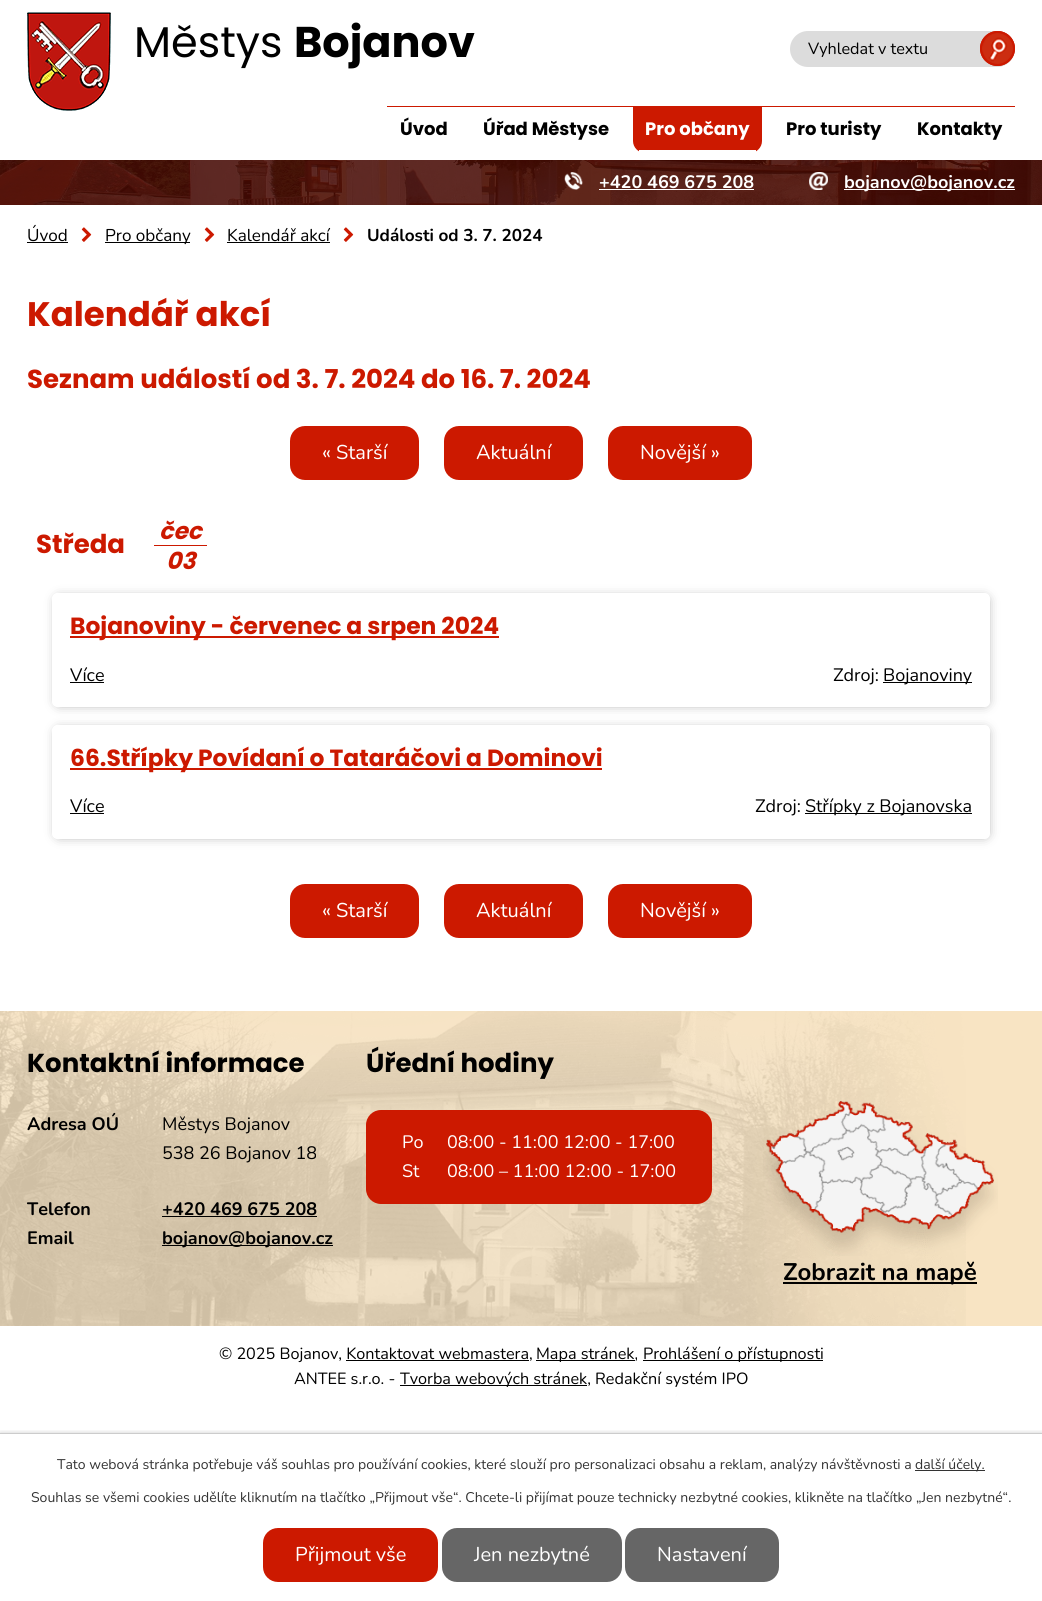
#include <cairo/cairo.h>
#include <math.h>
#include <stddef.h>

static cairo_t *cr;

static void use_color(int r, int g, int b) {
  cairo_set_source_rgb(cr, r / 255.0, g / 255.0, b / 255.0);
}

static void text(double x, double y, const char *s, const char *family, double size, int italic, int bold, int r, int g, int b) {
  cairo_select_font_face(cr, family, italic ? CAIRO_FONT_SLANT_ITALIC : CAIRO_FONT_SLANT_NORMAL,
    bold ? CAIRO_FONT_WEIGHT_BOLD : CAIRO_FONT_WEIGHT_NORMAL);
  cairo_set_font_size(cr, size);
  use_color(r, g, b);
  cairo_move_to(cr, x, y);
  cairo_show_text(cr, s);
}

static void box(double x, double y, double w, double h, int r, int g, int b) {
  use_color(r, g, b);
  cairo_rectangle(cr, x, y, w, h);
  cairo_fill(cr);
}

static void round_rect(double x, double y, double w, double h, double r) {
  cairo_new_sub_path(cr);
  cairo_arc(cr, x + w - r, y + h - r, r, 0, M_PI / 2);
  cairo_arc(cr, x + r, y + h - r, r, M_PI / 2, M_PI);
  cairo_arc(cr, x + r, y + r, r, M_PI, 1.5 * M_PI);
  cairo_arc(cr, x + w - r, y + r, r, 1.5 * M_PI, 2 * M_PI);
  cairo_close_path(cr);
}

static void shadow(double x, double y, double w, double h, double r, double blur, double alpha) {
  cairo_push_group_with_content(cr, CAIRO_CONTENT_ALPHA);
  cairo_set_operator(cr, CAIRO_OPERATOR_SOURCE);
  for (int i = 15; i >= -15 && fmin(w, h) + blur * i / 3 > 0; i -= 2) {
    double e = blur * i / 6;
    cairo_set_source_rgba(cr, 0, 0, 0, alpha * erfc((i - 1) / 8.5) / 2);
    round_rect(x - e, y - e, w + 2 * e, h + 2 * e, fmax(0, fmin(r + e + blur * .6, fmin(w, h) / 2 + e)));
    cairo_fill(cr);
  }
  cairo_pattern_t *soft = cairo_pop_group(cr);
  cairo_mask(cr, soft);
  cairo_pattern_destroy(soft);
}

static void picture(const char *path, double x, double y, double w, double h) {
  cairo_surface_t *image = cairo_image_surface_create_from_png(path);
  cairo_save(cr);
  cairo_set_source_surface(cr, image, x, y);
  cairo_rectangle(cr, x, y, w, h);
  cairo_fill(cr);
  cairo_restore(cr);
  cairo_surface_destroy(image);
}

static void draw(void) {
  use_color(255, 255, 255);
  cairo_paint(cr);
  picture("img_01.png", 27, 12, 84, 99);
  use_color(220, 220, 220);
  round_rect(790, 31, 225, 36, 18);
  cairo_fill(cr);
  use_color(204, 25, 0);
  cairo_arc(cr, 997.5, 48.5, 17.5, 0, 2 * M_PI);
  cairo_fill(cr);
  picture("img_02.png", 982, 33, 31, 31);
  cairo_arc(cr, 997.5, 48.5, 16.5, 0, 2 * M_PI);
  cairo_stroke(cr);
  picture("img_03.png", 0, 160, 1042, 45);
  picture("img_04.png", 564, 172, 19, 18);
  box(599, 189, 155, 1, 255, 255, 255);
  picture("img_05.png", 809, 172, 19, 18);
  box(844, 189, 171, 1, 255, 255, 255);
  box(387, 106, 628, 1, 204, 25, 0);
  cairo_new_path(cr);
  cairo_move_to(cr, 633, 107);
  cairo_line_to(cr, 762, 107);
  cairo_line_to(cr, 762, 141);
  cairo_curve_to(cr, 762, 147.5, 756.5, 153, 750, 153);
  cairo_line_to(cr, 645, 153);
  cairo_curve_to(cr, 638.5, 153, 633, 147.5, 633, 141);
  cairo_close_path(cr);
  cairo_fill(cr);
  box(639, 150, 117, 3, 255, 255, 255);
  box(27, 242, 41, 1, 0, 0, 0);
  picture("img_06.png", 81, 227, 11, 15);
  box(105, 242, 85, 1, 0, 0, 0);
  picture("img_06.png", 204, 227, 11, 15);
  box(227, 242, 103, 1, 0, 0, 0);
  picture("img_06.png", 343, 227, 11, 15);
  use_color(204, 25, 0);
  round_rect(291, 427, 127, 52, 14);
  cairo_fill_preserve(cr);
  cairo_stroke(cr);
  round_rect(445, 427, 137, 52, 14);
  cairo_fill_preserve(cr);
  cairo_stroke(cr);
  round_rect(609, 427, 142, 52, 14);
  cairo_fill_preserve(cr);
  cairo_stroke(cr);
  box(154, 545, 53, 1, 204, 25, 0);
  cairo_save(cr);
  cairo_set_fill_rule(cr, CAIRO_FILL_RULE_EVEN_ODD);
  cairo_new_path(cr);
  cairo_move_to(cr, 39, 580);
  cairo_line_to(cr, 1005, 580);
  cairo_line_to(cr, 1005, 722);
  cairo_line_to(cr, 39, 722);
  cairo_close_path(cr);
  cairo_move_to(cr, 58, 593);
  cairo_line_to(cr, 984, 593);
  cairo_curve_to(cr, 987.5, 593, 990, 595.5, 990, 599);
  cairo_line_to(cr, 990, 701);
  cairo_curve_to(cr, 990, 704.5, 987.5, 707, 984, 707);
  cairo_line_to(cr, 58, 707);
  cairo_curve_to(cr, 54.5, 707, 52, 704.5, 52, 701);
  cairo_line_to(cr, 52, 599);
  cairo_curve_to(cr, 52, 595.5, 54.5, 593, 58, 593);
  cairo_close_path(cr);
  cairo_clip(cr);
  use_color(136, 136, 136);
  shadow(58, 599, 928, 104, 1, 6, 1);
  cairo_restore(cr);
  box(70, 636, 429, 2, 204, 25, 0);
  box(70, 682, 34, 1, 0, 0, 0);
  box(883, 682, 89, 1, 0, 0, 0);
  cairo_save(cr);
  cairo_set_fill_rule(cr, CAIRO_FILL_RULE_EVEN_ODD);
  cairo_new_path(cr);
  cairo_move_to(cr, 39, 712);
  cairo_line_to(cr, 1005, 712);
  cairo_line_to(cr, 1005, 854);
  cairo_line_to(cr, 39, 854);
  cairo_close_path(cr);
  cairo_move_to(cr, 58, 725);
  cairo_line_to(cr, 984, 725);
  cairo_curve_to(cr, 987.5, 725, 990, 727.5, 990, 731);
  cairo_line_to(cr, 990, 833);
  cairo_curve_to(cr, 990, 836.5, 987.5, 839, 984, 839);
  cairo_line_to(cr, 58, 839);
  cairo_curve_to(cr, 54.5, 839, 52, 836.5, 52, 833);
  cairo_line_to(cr, 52, 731);
  cairo_curve_to(cr, 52, 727.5, 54.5, 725, 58, 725);
  cairo_close_path(cr);
  cairo_clip(cr);
  use_color(136, 136, 136);
  shadow(58, 731, 928, 104, 1, 6, 1);
  cairo_restore(cr);
  box(70, 768, 532, 2, 204, 25, 0);
  box(70, 813, 34, 1, 0, 0, 0);
  box(805, 813, 167, 1, 0, 0, 0);
  use_color(204, 25, 0);
  round_rect(291, 885, 127, 52, 14);
  cairo_fill_preserve(cr);
  cairo_stroke(cr);
  round_rect(445, 885, 137, 52, 14);
  cairo_fill_preserve(cr);
  cairo_stroke(cr);
  round_rect(609, 885, 142, 52, 14);
  cairo_fill_preserve(cr);
  cairo_stroke(cr);
  box(0, 1011, 1042, 315, 248, 228, 195);
  picture("img_07.png", 0, 1011, 966, 315);
  box(162, 1216, 155, 1, 0, 0, 0);
  box(162, 1245, 171, 1, 0, 0, 0);
  use_color(204, 25, 0);
  round_rect(366, 1110, 346, 94, 15);
  cairo_fill(cr);
  picture("img_08.png", 763, 1101, 235, 155);
  box(783, 1282, 194, 2, 0, 0, 0);
  box(536, 1360, 99, 1, 0, 0, 0);
  box(643, 1360, 180, 1, 0, 0, 0);
  box(346, 1360, 183, 1, 0, 0, 0);
  box(400, 1385, 187, 1, 0, 0, 0);
  cairo_save(cr);
  cairo_rectangle(cr, 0, 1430, 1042, 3);
  cairo_clip(cr);
  use_color(0, 0, 0);
  shadow(0, 1433, 1042, 168, 0, 2.5, 0.2);
  cairo_restore(cr);
  box(0, 1433, 1042, 1, 204, 204, 204);
  box(915, 1470, 70, 1, 51, 51, 51);
  use_color(204, 25, 0);
  round_rect(264, 1529, 173, 52, 14);
  cairo_fill_preserve(cr);
  cairo_stroke(cr);
  use_color(102, 102, 102);
  round_rect(443, 1529, 178, 52, 14);
  cairo_fill_preserve(cr);
  cairo_stroke(cr);
  round_rect(626, 1529, 152, 52, 14);
  cairo_fill_preserve(cr);
  cairo_stroke(cr);
  text(134, 57, "Městys", "Poppins", 43, 0, 0, 0, 0, 0);
  text(294, 57, "Bojanov", "Poppins", 43, 0, 1, 0, 0, 0);
  text(808, 54, "Vyhledat v textu", "Nunito", 16.2, 0, 0, 0, 0, 0);
  text(599, 188, "+420 469 675 208", "Nunito", 18, 0, 1, 255, 255, 255);
  text(844, 188, "bojanov@bojanov.cz", "Nunito", 18, 0, 1, 255, 255, 255);
  text(400, 135, "Úvod", "Poppins", 18, 0, 1, 0, 0, 0);
  text(483, 135, "Úřad Městyse", "Poppins", 18, 0, 1, 0, 0, 0);
  text(645, 135, "Pro občany", "Poppins", 18, 0, 1, 255, 255, 255);
  text(786, 135, "Pro turisty", "Poppins", 18, 0, 1, 0, 0, 0);
  text(917, 135, "Kontakty", "Poppins", 18, 0, 1, 0, 0, 0);
  text(27, 241, "Úvod", "Nunito", 17.1, 0, 0, 0, 0, 0);
  text(105, 241, "Pro občany", "Nunito", 17.1, 0, 0, 0, 0, 0);
  text(227, 241, "Kalendář akcí", "Nunito", 17.1, 0, 0, 0, 0, 0);
  text(367, 241, "Události od 3. 7. 2024", "Nunito", 17.1, 0, 1, 0, 0, 0);
  text(27, 326, "Kalendář akcí", "Poppins", 34, 0, 1, 204, 25, 0);
  text(27, 388, "Seznam událostí od 3. 7. 2024 do 16. 7. 2024", "Poppins", 26, 0, 1, 204, 25, 0);
  text(322, 459, "« Starší", "Nunito", 20, 0, 0, 255, 255, 255);
  text(476, 459, "Aktuální", "Nunito", 20, 0, 0, 255, 255, 255);
  text(640, 459, "Novější »", "Nunito", 20, 0, 0, 255, 255, 255);
  text(36, 553, "Středa", "Poppins", 26, 0, 1, 204, 25, 0);
  text(159, 539, "čec", "Poppins", 23.4, 1, 1, 204, 25, 0);
  text(166, 569, "03", "Poppins", 23.4, 1, 1, 204, 25, 0);
  text(70, 634, "Bojanoviny - červenec a srpen 2024", "Poppins", 23.4, 0, 1, 204, 25, 0);
  text(70, 681, "Více", "Nunito", 18, 0, 0, 0, 0, 0);
  text(833, 681, "Zdroj:", "Nunito", 18, 0, 0, 0, 0, 0);
  text(883, 681, "Bojanoviny", "Nunito", 18, 0, 0, 0, 0, 0);
  text(70, 766, "66.Střípky Povídaní o Tataráčovi a Dominovi", "Poppins", 23.4, 0, 1, 204, 25, 0);
  text(70, 812, "Více", "Nunito", 18, 0, 0, 0, 0, 0);
  text(755, 812, "Zdroj:", "Nunito", 18, 0, 0, 0, 0, 0);
  text(805, 812, "Střípky z Bojanovska", "Nunito", 18, 0, 0, 0, 0, 0);
  text(322, 917, "« Starší", "Nunito", 20, 0, 0, 255, 255, 255);
  text(476, 917, "Aktuální", "Nunito", 20, 0, 0, 255, 255, 255);
  text(640, 917, "Novější »", "Nunito", 20, 0, 0, 255, 255, 255);
  text(27, 1072, "Kontaktní informace", "Poppins", 26, 0, 1, 0, 0, 0);
  text(27, 1130, "Adresa OÚ", "Nunito", 18, 0, 1, 0, 0, 0);
  text(162, 1130, "Městys Bojanov", "Nunito", 18, 0, 0, 0, 0, 0);
  text(162, 1159, "538 26 Bojanov 18", "Nunito", 18, 0, 0, 0, 0, 0);
  text(27, 1215, "Telefon", "Nunito", 18, 0, 1, 0, 0, 0);
  text(162, 1215, "+420 469 675 208", "Nunito", 18, 0, 1, 0, 0, 0);
  text(27, 1244, "Email", "Nunito", 18, 0, 1, 0, 0, 0);
  text(162, 1244, "bojanov@bojanov.cz", "Nunito", 18, 0, 1, 0, 0, 0);
  text(366, 1072, "Úřední hodiny", "Poppins", 26, 0, 1, 0, 0, 0);
  text(402, 1148, "Po", "Nunito", 18, 0, 0, 255, 255, 255);
  text(447, 1148, "08:00 - 11:00 12:00 - 17:00", "Nunito", 18, 0, 0, 255, 255, 255);
  text(402, 1177, "St", "Nunito", 18, 0, 0, 255, 255, 255);
  text(447, 1177, "08:00 – 11:00 12:00 - 17:00", "Nunito", 18, 0, 0, 255, 255, 255);
  text(783, 1280, "Zobrazit na mapě", "Nunito", 24, 0, 1, 0, 0, 0);
  text(219, 1359, "© 2025 Bojanov, Kontaktovat webmastera,", "Nunito", 16.2, 0, 0, 0, 0, 0);
  text(536, 1359, "Mapa stránek,", "Nunito", 16.2, 0, 0, 0, 0, 0);
  text(643, 1359, "Prohlášení o přístupnosti", "Nunito", 16.2, 0, 0, 0, 0, 0);
  text(294, 1384, "ANTEE s.r.o. -", "Nunito", 16.2, 0, 0, 0, 0, 0);
  text(400, 1384, "Tvorba webových stránek, Redakční systém IPO", "Nunito", 16.2, 0, 0, 0, 0, 0);
  text(57, 1469, "Tato webová stránka potřebuje váš souhlas pro používání cookies, které slouží pro personalizaci obsahu a reklam, analýzy návštěvnosti a", "Nunito", 14, 0, 0, 51, 51, 51);
  text(915, 1469, "další účely.", "Nunito", 14, 0, 0, 51, 51, 51);
  text(31, 1502, "Souhlas se všemi cookies udělíte kliknutím na tlačítko „Přijmout vše“. Chcete-li přijímat pouze technicky nezbytné cookies, klikněte na tlačítko „Jen nezbytné“.", "Nunito", 14, 0, 0, 51, 51, 51);
  text(295, 1561, "Přijmout vše", "Nunito", 20, 0, 0, 255, 255, 255);
  text(474, 1561, "Jen nezbytné", "Nunito", 20, 0, 0, 255, 255, 255);
  text(657, 1561, "Nastavení", "Nunito", 20, 0, 0, 255, 255, 255);
}

int main(void) {
  cairo_surface_t *surface = cairo_image_surface_create(CAIRO_FORMAT_RGB24, 1042, 1601);
  cr = cairo_create(surface);
  cairo_font_options_t *options = cairo_font_options_create();
  cairo_font_options_set_hint_metrics(options, CAIRO_HINT_METRICS_OFF);
  cairo_font_options_set_hint_style(options, CAIRO_HINT_STYLE_NONE);
  cairo_set_font_options(cr, options);
  cairo_set_miter_limit(cr, 4);
  draw();
  cairo_surface_write_to_png(surface, "out.png");
  cairo_font_options_destroy(options);
  cairo_destroy(cr);
  cairo_surface_destroy(surface);
  return 0;
}
